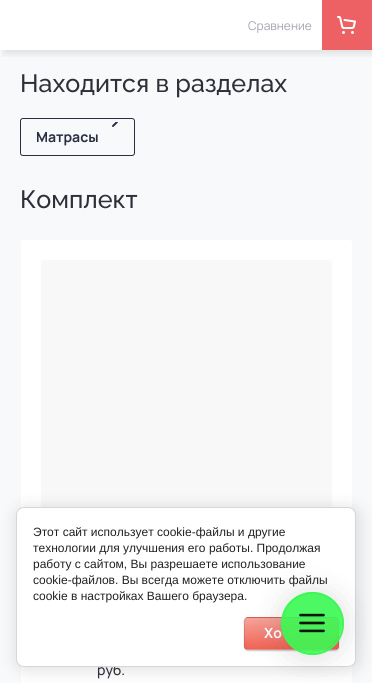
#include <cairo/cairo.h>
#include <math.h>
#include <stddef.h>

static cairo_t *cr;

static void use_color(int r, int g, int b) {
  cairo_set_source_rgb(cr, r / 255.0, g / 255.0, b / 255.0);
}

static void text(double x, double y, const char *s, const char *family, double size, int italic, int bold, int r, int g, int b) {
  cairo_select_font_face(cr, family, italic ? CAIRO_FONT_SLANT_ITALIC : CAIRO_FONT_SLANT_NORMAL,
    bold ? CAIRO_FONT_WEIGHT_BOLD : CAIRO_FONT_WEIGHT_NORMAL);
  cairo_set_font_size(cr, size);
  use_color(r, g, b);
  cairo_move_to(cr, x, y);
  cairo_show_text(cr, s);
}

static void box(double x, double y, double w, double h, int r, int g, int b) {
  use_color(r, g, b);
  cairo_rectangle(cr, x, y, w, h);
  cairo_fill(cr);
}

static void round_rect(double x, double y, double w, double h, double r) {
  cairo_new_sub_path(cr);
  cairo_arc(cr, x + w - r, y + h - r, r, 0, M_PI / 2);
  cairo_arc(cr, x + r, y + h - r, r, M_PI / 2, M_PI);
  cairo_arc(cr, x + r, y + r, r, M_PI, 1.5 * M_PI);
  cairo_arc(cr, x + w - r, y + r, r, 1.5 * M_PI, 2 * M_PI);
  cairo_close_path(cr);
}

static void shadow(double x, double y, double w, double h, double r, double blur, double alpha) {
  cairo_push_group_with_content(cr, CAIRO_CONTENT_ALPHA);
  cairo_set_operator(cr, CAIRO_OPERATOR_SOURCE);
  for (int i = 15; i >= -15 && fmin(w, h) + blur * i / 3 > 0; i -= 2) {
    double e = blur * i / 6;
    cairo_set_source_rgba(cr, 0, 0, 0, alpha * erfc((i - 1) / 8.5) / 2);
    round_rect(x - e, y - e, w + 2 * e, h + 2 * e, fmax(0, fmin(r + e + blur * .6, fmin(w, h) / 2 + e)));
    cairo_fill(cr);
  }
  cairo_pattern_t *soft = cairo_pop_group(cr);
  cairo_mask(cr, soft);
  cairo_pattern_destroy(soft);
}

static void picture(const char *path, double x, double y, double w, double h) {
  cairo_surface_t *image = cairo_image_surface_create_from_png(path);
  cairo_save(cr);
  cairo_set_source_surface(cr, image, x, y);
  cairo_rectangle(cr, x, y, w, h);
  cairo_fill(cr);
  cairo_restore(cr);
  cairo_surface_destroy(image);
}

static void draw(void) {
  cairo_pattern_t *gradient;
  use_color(248, 249, 251);
  cairo_paint(cr);
  box(0, 0, 322, 50, 255, 255, 255);
  cairo_save(cr);
  cairo_rectangle(cr, 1, 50, 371, 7);
  cairo_clip(cr);
  use_color(0, 0, 0);
  shadow(4, 4, 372, 50, 0, 4, 0.1);
  cairo_restore(cr);
  box(322, 0, 50, 50, 237, 96, 99);
  picture("img_01.png", 337, 16, 19, 18);
  round_rect(20.5, 118.5, 114, 37, 2.5);
  use_color(43, 45, 66);
  cairo_set_line_width(cr, 1);
  cairo_stroke(cr);
  picture("img_02.png", 112, 122, 6, 5);
  use_color(255, 255, 255);
  round_rect(21, 240, 331, 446, 3);
  cairo_fill(cr);
  use_color(248, 248, 248);
  round_rect(41, 260, 291, 291, 3);
  cairo_fill(cr);
  use_color(0, 0, 0);
  shadow(18, 509, 340, 160, 8, 9, 0.14);
  text(248, 30, "Сравнение", "Manrope", 12, 0, 0, 164, 165, 178);
  text(20, 92, "Находится в разделах", "Raleway Medium", 25, 0, 0, 46, 47, 56);
  text(36, 142, "Матрасы", "Manrope", 14, 0, 1, 43, 45, 66);
  text(20, 208, "Комплект", "Raleway Medium", 25, 0, 0, 46, 47, 56);
  text(97, 675, "руб.", "Manrope Medium", 14, 0, 0, 46, 47, 56);
  use_color(255, 255, 255);
  round_rect(16.5, 507.5, 339, 159, 7.5);
  cairo_fill_preserve(cr);
  use_color(214, 214, 214);
  cairo_stroke(cr);
  text(33, 536, "Этот сайт использует cookie-файлы и другие", "Liberation Sans", 12, 0, 0, 33, 33, 33);
  text(33, 552, "технологии для улучшения его работы. Продолжая", "Liberation Sans", 12, 0, 0, 33, 33, 33);
  text(33, 568, "работу с сайтом, Вы разрешаете использование", "Liberation Sans", 12, 0, 0, 33, 33, 33);
  text(33, 584, "cookie-файлов. Вы всегда можете отключить файлы", "Liberation Sans", 12, 0, 0, 33, 33, 33);
  text(33, 600, "cookie в настройках Вашего браузера.", "Liberation Sans", 12, 0, 0, 33, 33, 33);
  use_color(0, 0, 0);
  shadow(244, 618, 95, 33, 4, 0.5, 0.2);
  cairo_save(cr);
  round_rect(244, 617, 95, 33, 4);
  cairo_clip(cr);
  gradient = cairo_pattern_create_linear(292, 587, 292, 618);
  cairo_pattern_add_color_stop_rgba(gradient, 0, 0.965, 0.639, 0.604, 1);
  cairo_pattern_add_color_stop_rgba(gradient, 1, 0.941, 0.388, 0.329, 1);
  cairo_set_source(cr, gradient);
  cairo_pattern_destroy(gradient);
  cairo_rectangle(cr, 244, 617, 95, 1);
  cairo_fill(cr);
  gradient = cairo_pattern_create_linear(292, 618, 292, 649);
  cairo_pattern_add_color_stop_rgba(gradient, 0, 0.965, 0.639, 0.604, 1);
  cairo_pattern_add_color_stop_rgba(gradient, 1, 0.941, 0.388, 0.329, 1);
  cairo_set_source(cr, gradient);
  cairo_pattern_destroy(gradient);
  cairo_rectangle(cr, 244, 618, 95, 31);
  cairo_fill(cr);
  gradient = cairo_pattern_create_linear(292, 649, 292, 680);
  cairo_pattern_add_color_stop_rgba(gradient, 0, 0.965, 0.639, 0.604, 1);
  cairo_pattern_add_color_stop_rgba(gradient, 1, 0.941, 0.388, 0.329, 1);
  cairo_set_source(cr, gradient);
  cairo_pattern_destroy(gradient);
  cairo_rectangle(cr, 244, 649, 95, 1);
  cairo_fill(cr);
  cairo_restore(cr);
  round_rect(244.5, 617.5, 94, 32, 3.5);
  cairo_set_source_rgba(cr, 0, 0, 0, 0.1);
  cairo_stroke(cr);
  text(264, 638, "Хо", "Manrope", 14, 0, 1, 255, 255, 255);
  cairo_save(cr);
  cairo_set_fill_rule(cr, CAIRO_FILL_RULE_EVEN_ODD);
  cairo_new_path(cr);
  cairo_move_to(cr, 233, 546);
  cairo_line_to(cr, 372, 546);
  cairo_line_to(cr, 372, 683);
  cairo_line_to(cr, 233, 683);
  cairo_close_path(cr);
  cairo_move_to(cr, 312, 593);
  cairo_curve_to(cr, 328.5, 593, 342, 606.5, 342, 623);
  cairo_curve_to(cr, 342, 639.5, 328.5, 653, 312, 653);
  cairo_curve_to(cr, 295.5, 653, 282, 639.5, 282, 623);
  cairo_curve_to(cr, 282, 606.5, 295.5, 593, 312, 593);
  cairo_close_path(cr);
  cairo_clip(cr);
  use_color(0, 0, 0);
  shadow(282, 595, 60, 60, 30, 16, 0.14);
  cairo_restore(cr);
  cairo_set_source_rgba(cr, 0.227, 0.973, 0.322, 0.9);
  cairo_arc(cr, 312, 623, 30, 0, 2 * M_PI);
  cairo_fill(cr);
  cairo_arc(cr, 312.5, 623.5, 30.5, 0, 2 * M_PI);
  cairo_set_source_rgba(cr, 0.227, 0.973, 0.322, 0.81);
  cairo_set_line_width(cr, 2);
  cairo_stroke(cr);
  picture("img_03.png", 299, 613, 26, 20);
  cairo_arc(cr, 312.5, 623.5, 30.5, 0, 2 * M_PI);
  cairo_stroke(cr);
}

int main(void) {
  cairo_surface_t *surface = cairo_image_surface_create(CAIRO_FORMAT_RGB24, 372, 683);
  cr = cairo_create(surface);
  cairo_font_options_t *options = cairo_font_options_create();
  cairo_font_options_set_hint_metrics(options, CAIRO_HINT_METRICS_OFF);
  cairo_font_options_set_hint_style(options, CAIRO_HINT_STYLE_NONE);
  cairo_set_font_options(cr, options);
  cairo_set_miter_limit(cr, 4);
  draw();
  cairo_surface_write_to_png(surface, "out.png");
  cairo_font_options_destroy(options);
  cairo_destroy(cr);
  cairo_surface_destroy(surface);
  return 0;
}
